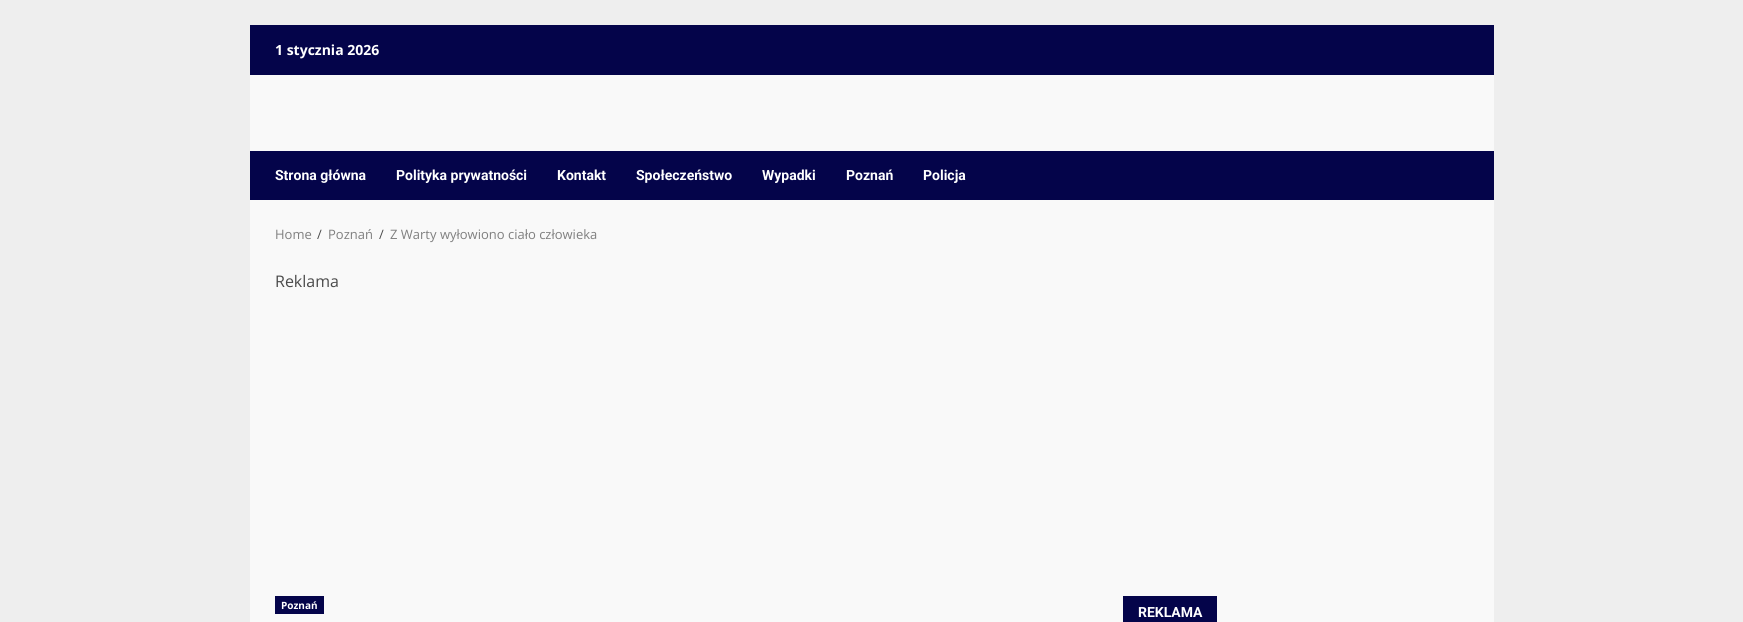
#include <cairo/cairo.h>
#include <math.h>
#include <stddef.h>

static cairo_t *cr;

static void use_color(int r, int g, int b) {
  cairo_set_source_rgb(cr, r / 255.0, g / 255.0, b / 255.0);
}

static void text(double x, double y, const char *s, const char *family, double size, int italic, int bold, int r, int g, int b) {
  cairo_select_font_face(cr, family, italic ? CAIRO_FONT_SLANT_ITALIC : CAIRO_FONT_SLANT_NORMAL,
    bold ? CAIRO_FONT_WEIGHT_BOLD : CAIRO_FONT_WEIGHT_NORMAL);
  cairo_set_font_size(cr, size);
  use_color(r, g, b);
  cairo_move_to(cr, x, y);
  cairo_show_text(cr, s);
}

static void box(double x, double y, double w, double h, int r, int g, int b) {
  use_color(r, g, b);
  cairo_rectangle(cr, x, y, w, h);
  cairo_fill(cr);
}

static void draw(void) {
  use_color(238, 238, 238);
  cairo_paint(cr);
  box(250, 75, 1244, 547, 249, 249, 249);
  box(250, 25, 1244, 50, 4, 4, 74);
  box(250, 151, 1244, 49, 4, 4, 74);
  box(275, 596, 49, 18, 4, 4, 74);
  box(1123, 596, 94, 26, 4, 4, 74);
  text(275, 55, "1 stycznia 2026", "Open Sans", 14, 0, 1, 255, 255, 255);
  text(275, 180, "Strona główna", "Roboto", 14, 0, 1, 255, 255, 255);
  text(396, 180, "Polityka prywatności", "Roboto", 14, 0, 1, 255, 255, 255);
  text(557, 180, "Kontakt", "Roboto", 14, 0, 1, 255, 255, 255);
  text(636, 180, "Społeczeństwo", "Roboto", 14, 0, 1, 255, 255, 255);
  text(762, 180, "Wypadki", "Roboto", 14, 0, 1, 255, 255, 255);
  text(846, 180, "Poznań", "Roboto", 14, 0, 1, 255, 255, 255);
  text(923, 180, "Policja", "Roboto", 14, 0, 1, 255, 255, 255);
  text(275, 239, "Home", "Open Sans", 13, 0, 0, 127, 127, 127);
  text(317, 239, "/", "Open Sans", 13, 0, 0, 74, 74, 74);
  text(328, 239, "Poznań", "Open Sans", 13, 0, 0, 127, 127, 127);
  text(379, 239, "/", "Open Sans", 13, 0, 0, 74, 74, 74);
  text(390, 239, "Z Warty wyłowiono ciało człowieka", "Open Sans", 13, 0, 0, 127, 127, 127);
  text(275, 287, "Reklama", "Open Sans", 16, 0, 0, 74, 74, 74);
  text(281, 609, "Poznań", "Open Sans", 10, 0, 1, 255, 255, 255);
  text(1138, 617, "REKLAMA", "Roboto", 14, 0, 1, 255, 255, 255);
}

int main(void) {
  cairo_surface_t *surface = cairo_image_surface_create(CAIRO_FORMAT_RGB24, 1743, 622);
  cr = cairo_create(surface);
  cairo_font_options_t *options = cairo_font_options_create();
  cairo_font_options_set_hint_metrics(options, CAIRO_HINT_METRICS_OFF);
  cairo_font_options_set_hint_style(options, CAIRO_HINT_STYLE_NONE);
  cairo_set_font_options(cr, options);
  cairo_set_miter_limit(cr, 4);
  draw();
  cairo_surface_write_to_png(surface, "out.png");
  cairo_font_options_destroy(options);
  cairo_destroy(cr);
  cairo_surface_destroy(surface);
  return 0;
}
